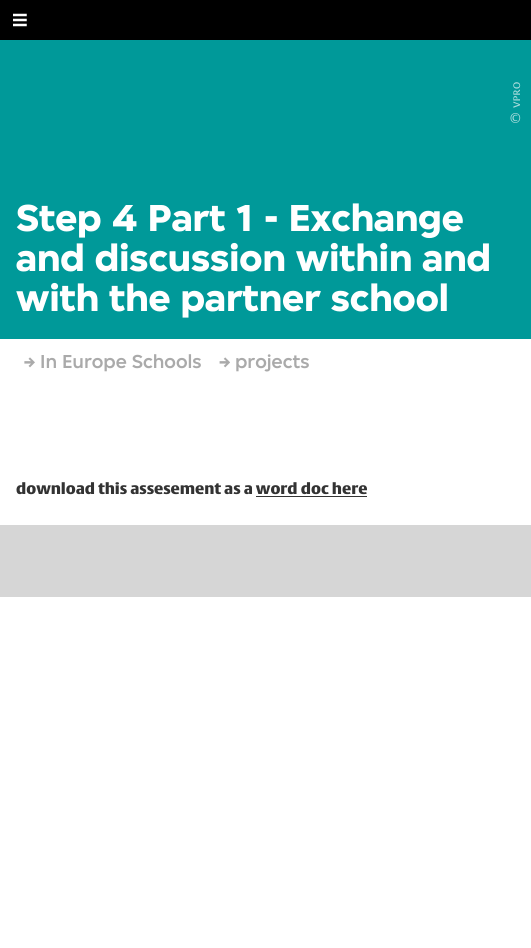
#include <cairo/cairo.h>
#include <math.h>
#include <stddef.h>

static cairo_t *cr;

static void use_color(int r, int g, int b) {
  cairo_set_source_rgb(cr, r / 255.0, g / 255.0, b / 255.0);
}

static void text(double x, double y, const char *s, const char *family, double size, int italic, int bold, int r, int g, int b) {
  cairo_select_font_face(cr, family, italic ? CAIRO_FONT_SLANT_ITALIC : CAIRO_FONT_SLANT_NORMAL,
    bold ? CAIRO_FONT_WEIGHT_BOLD : CAIRO_FONT_WEIGHT_NORMAL);
  cairo_set_font_size(cr, size);
  use_color(r, g, b);
  cairo_move_to(cr, x, y);
  cairo_show_text(cr, s);
}

static void box(double x, double y, double w, double h, int r, int g, int b) {
  use_color(r, g, b);
  cairo_rectangle(cr, x, y, w, h);
  cairo_fill(cr);
}

static void picture(const char *path, double x, double y, double w, double h) {
  cairo_surface_t *image = cairo_image_surface_create_from_png(path);
  cairo_save(cr);
  cairo_set_source_surface(cr, image, x, y);
  cairo_rectangle(cr, x, y, w, h);
  cairo_fill(cr);
  cairo_restore(cr);
  cairo_surface_destroy(image);
}

static void draw(void) {
  use_color(255, 255, 255);
  cairo_paint(cr);
  box(0, 0, 531, 40, 0, 0, 0);
  picture("img_01.png", 13, 13, 14, 14);
  box(0, 40, 531, 299, 0, 153, 153);
  picture("img_02.png", 24, 357, 11, 11);
  picture("img_03.png", 219, 357, 11, 11);
  box(256, 496, 111, 1, 51, 51, 51);
  box(0, 525, 531, 72, 214, 214, 214);
  cairo_save(cr);
  cairo_translate(cr, 520, 108);
  cairo_rotate(cr, -90 * M_PI / 180);
  text(0, 0, "vpro", "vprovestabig", 11, 0, 0, 168, 220, 220);
  cairo_restore(cr);
  text(510, 121, "©", "vprovestabig", 11, 0, 0, 168, 220, 220);
  text(16, 231, "Step 4 Part 1 - Exchange", "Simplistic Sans", 40, 0, 1, 255, 255, 255);
  text(16, 271, "and discussion within and", "Simplistic Sans", 40, 0, 1, 255, 255, 255);
  text(16, 311, "with the partner school", "Simplistic Sans", 40, 0, 1, 255, 255, 255);
  text(40, 368, "In Europe Schools", "Simplistic Sans Medium", 20, 0, 0, 170, 170, 170);
  text(235, 368, "projects", "Simplistic Sans Medium", 20, 0, 0, 170, 170, 170);
  text(16, 494, "download this assesement as a word doc here", "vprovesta", 15, 0, 1, 51, 51, 51);
}

int main(void) {
  cairo_surface_t *surface = cairo_image_surface_create(CAIRO_FORMAT_RGB24, 531, 948);
  cr = cairo_create(surface);
  cairo_font_options_t *options = cairo_font_options_create();
  cairo_font_options_set_hint_metrics(options, CAIRO_HINT_METRICS_OFF);
  cairo_font_options_set_hint_style(options, CAIRO_HINT_STYLE_NONE);
  cairo_set_font_options(cr, options);
  cairo_set_miter_limit(cr, 4);
  draw();
  cairo_surface_write_to_png(surface, "out.png");
  cairo_font_options_destroy(options);
  cairo_destroy(cr);
  cairo_surface_destroy(surface);
  return 0;
}
